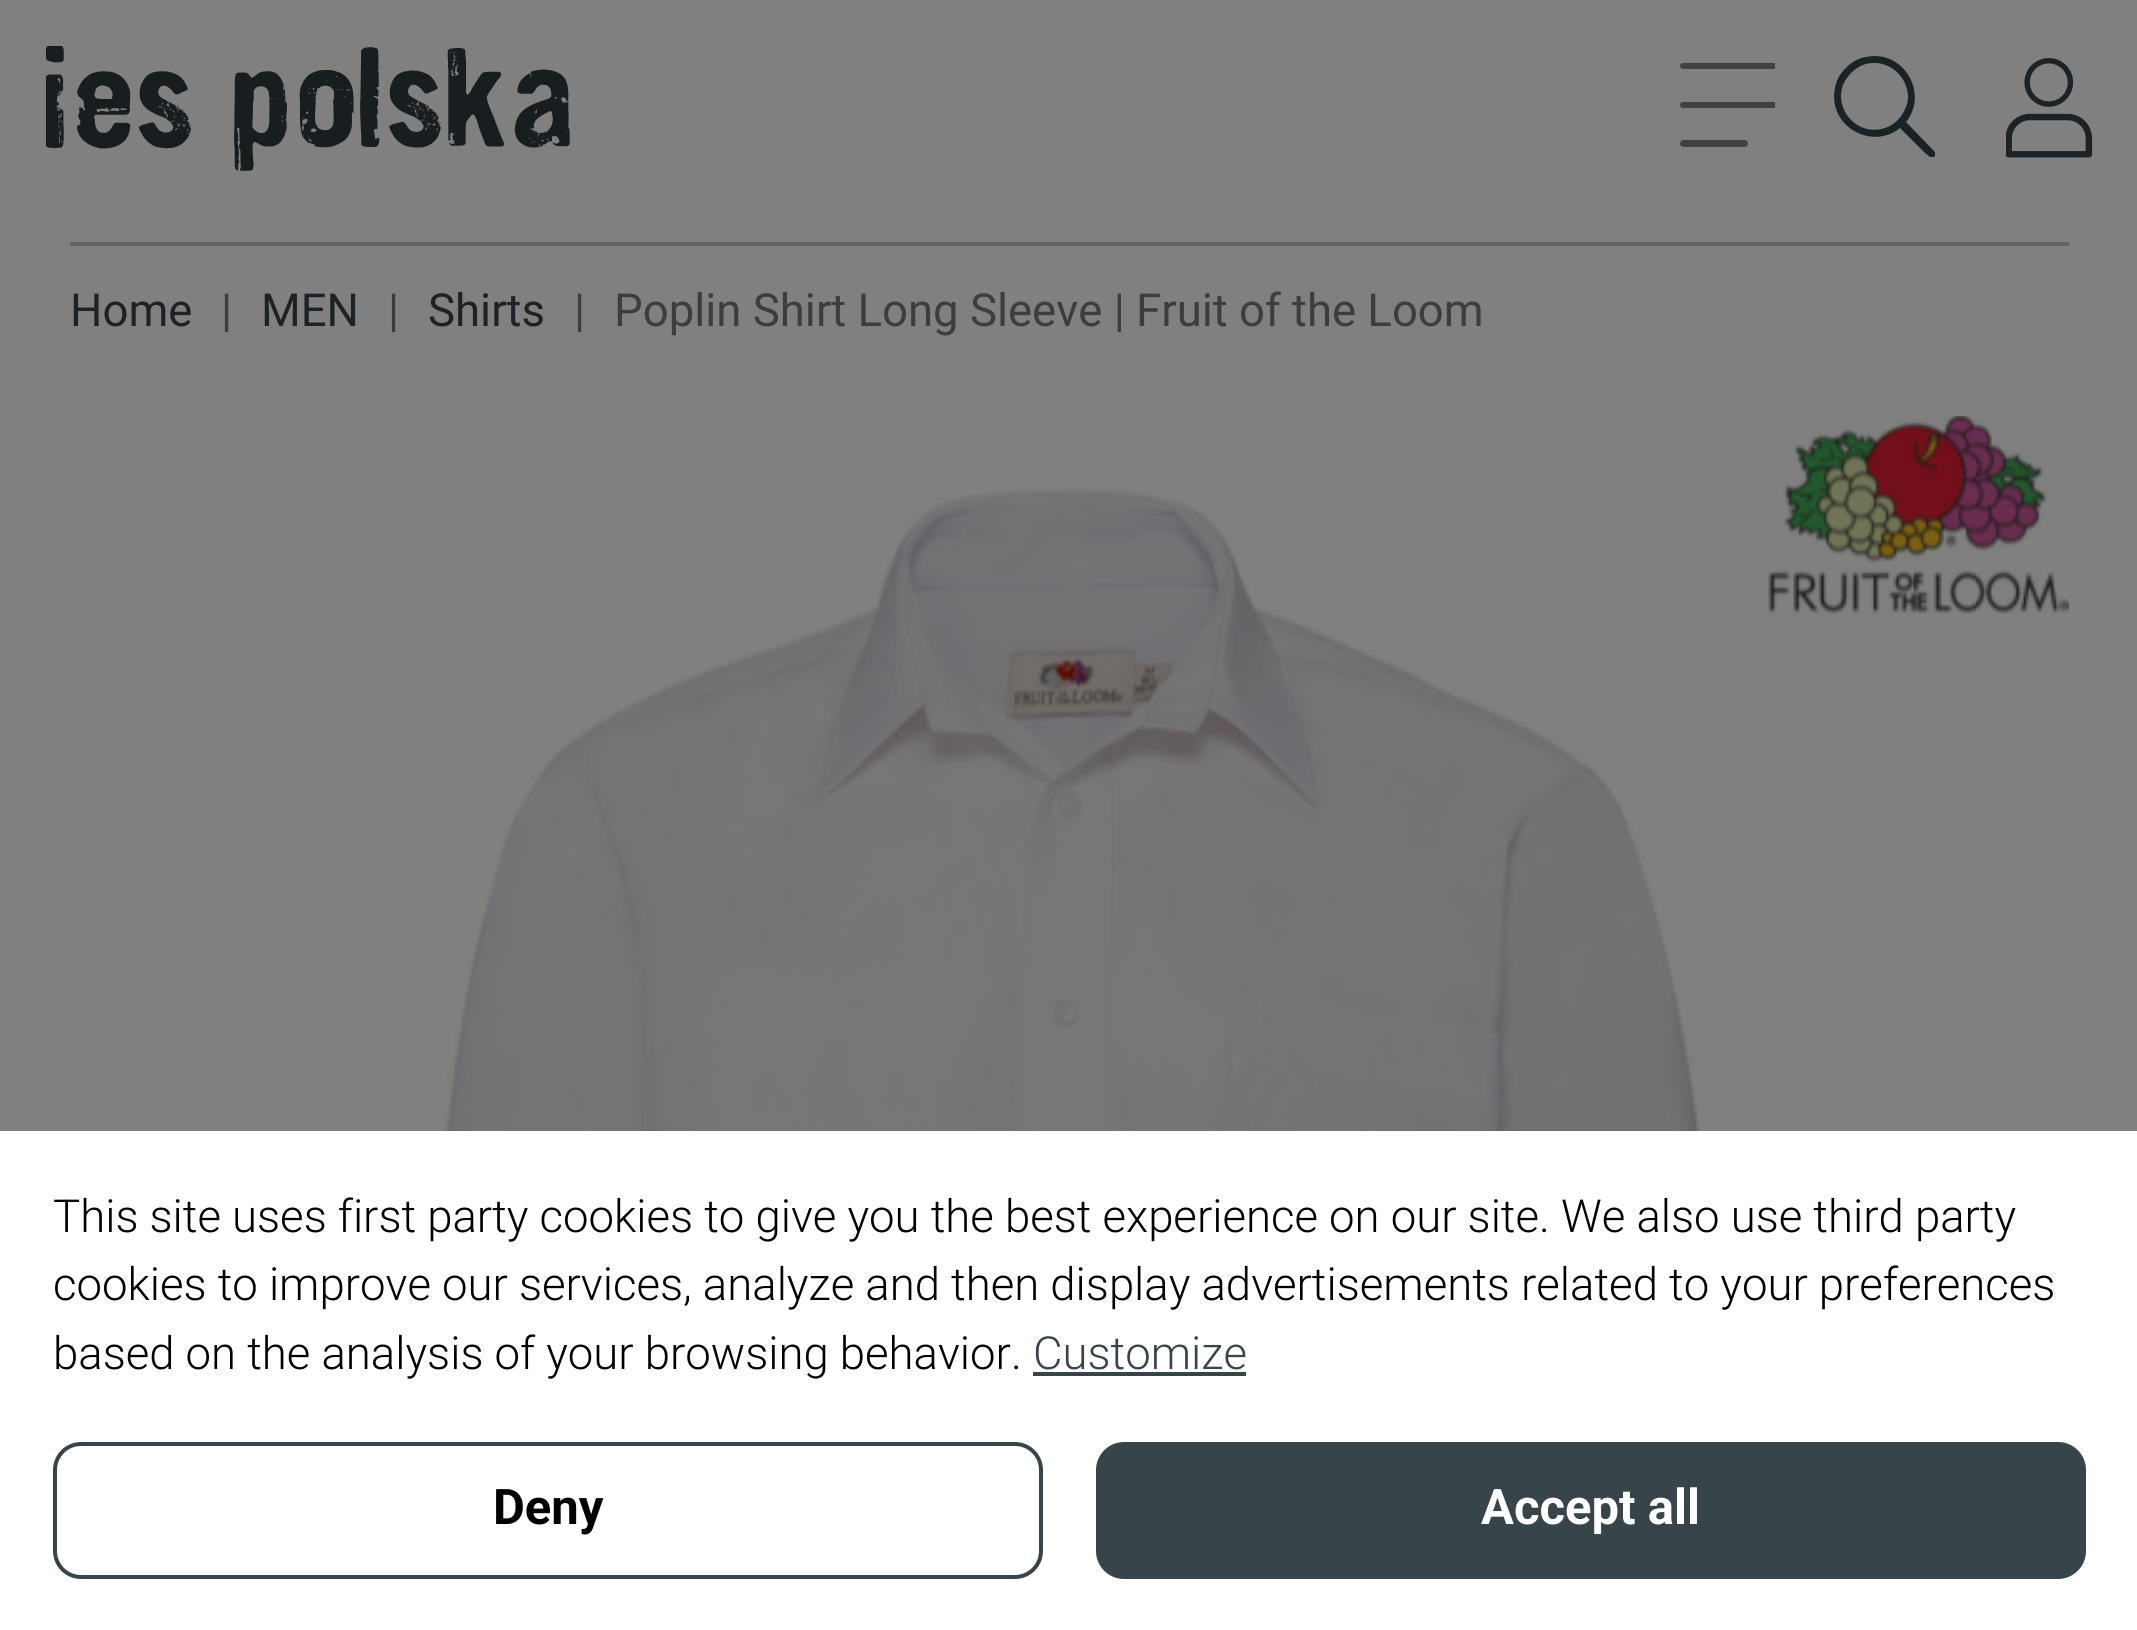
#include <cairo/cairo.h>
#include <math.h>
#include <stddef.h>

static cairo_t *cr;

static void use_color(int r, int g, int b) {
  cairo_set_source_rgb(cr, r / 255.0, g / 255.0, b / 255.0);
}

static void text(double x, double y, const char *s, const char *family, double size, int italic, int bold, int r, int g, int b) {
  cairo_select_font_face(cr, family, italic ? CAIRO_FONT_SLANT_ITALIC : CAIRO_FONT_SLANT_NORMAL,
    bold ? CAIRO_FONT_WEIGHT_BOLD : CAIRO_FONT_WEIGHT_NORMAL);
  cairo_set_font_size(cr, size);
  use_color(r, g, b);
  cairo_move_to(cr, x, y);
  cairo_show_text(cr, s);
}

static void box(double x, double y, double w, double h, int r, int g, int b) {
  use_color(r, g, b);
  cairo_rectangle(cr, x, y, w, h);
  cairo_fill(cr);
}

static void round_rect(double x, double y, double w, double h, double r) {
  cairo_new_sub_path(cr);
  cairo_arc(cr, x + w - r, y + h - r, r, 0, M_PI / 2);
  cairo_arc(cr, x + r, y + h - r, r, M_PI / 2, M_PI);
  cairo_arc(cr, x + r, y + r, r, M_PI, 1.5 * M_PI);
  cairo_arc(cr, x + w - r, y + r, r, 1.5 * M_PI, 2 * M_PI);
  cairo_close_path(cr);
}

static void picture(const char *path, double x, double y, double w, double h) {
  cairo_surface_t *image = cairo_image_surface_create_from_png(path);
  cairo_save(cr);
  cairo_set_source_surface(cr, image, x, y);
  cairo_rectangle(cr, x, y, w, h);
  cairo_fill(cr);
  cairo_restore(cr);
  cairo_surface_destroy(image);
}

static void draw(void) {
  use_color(128, 128, 128);
  cairo_paint(cr);
  picture("img_01.png", 46, 46, 524, 125);
  cairo_save(cr);
  cairo_rectangle(cr, 1680, 63, 95, 84);
  cairo_clip(cr);
  use_color(63, 66, 68);
  round_rect(1680, 63, 97, 6, 3);
  cairo_fill(cr);
  round_rect(1680, 102, 97, 6, 3);
  cairo_fill(cr);
  cairo_restore(cr);
  use_color(63, 66, 68);
  round_rect(1680, 140, 68, 7, 3.5);
  cairo_fill(cr);
  cairo_save(cr);
  cairo_rectangle(cr, 1834, 56, 101, 101);
  cairo_clip(cr);
  use_color(27, 34, 37);
  cairo_set_fill_rule(cr, CAIRO_FILL_RULE_EVEN_ODD);
  cairo_new_path(cr);
  cairo_move_to(cr, 1934, 151);
  cairo_line_to(cr, 1906, 122);
  cairo_curve_to(cr, 1929, 94, 1904, 49, 1866, 57);
  cairo_curve_to(cr, 1859, 58, 1851, 62, 1846, 68);
  cairo_curve_to(cr, 1840, 73, 1836, 81, 1835, 88);
  cairo_curve_to(cr, 1827, 126, 1872, 151, 1900, 128);
  cairo_line_to(cr, 1924, 152);
  cairo_line_to(cr, 1931, 158);
  cairo_curve_to(cr, 1935, 158, 1937, 154, 1934, 151);
  cairo_close_path(cr);
  cairo_move_to(cr, 1841, 96);
  cairo_curve_to(cr, 1841, 105, 1845, 114, 1851, 120);
  cairo_curve_to(cr, 1868, 137, 1896, 131, 1905, 109);
  cairo_curve_to(cr, 1907, 105, 1908, 101, 1908, 96);
  cairo_curve_to(cr, 1906, 64, 1866, 50, 1847, 78);
  cairo_curve_to(cr, 1843, 83, 1841, 90, 1841, 96);
  cairo_close_path(cr);
  cairo_fill(cr);
  cairo_restore(cr);
  picture("img_02.png", 2006, 58, 87, 100);
  box(70, 242, 1999, 4, 99, 99, 99);
  picture("img_03.png", 403, 416, 1666, 715);
  box(0, 1131, 2137, 499, 255, 255, 255);
  box(1033, 1372, 213, 4, 55, 68, 74);
  round_rect(55, 1444, 986, 133, 26);
  cairo_set_line_width(cr, 4);
  cairo_stroke(cr);
  round_rect(1098, 1444, 986, 133, 26);
  cairo_fill_preserve(cr);
  cairo_stroke(cr);
  text(70, 326, "Home", "Roboto", 45.5, 0, 0, 28, 34, 37);
  text(221, 326, "|", "Roboto", 45.5, 0, 0, 61, 61, 61);
  text(261, 326, "MEN", "Roboto", 45.5, 0, 0, 28, 34, 37);
  text(388, 326, "|", "Roboto", 45.5, 0, 0, 61, 61, 61);
  text(428, 326, "Shirts", "Roboto", 45.5, 0, 0, 28, 34, 37);
  text(574, 326, "|", "Roboto", 45.5, 0, 0, 61, 61, 61);
  text(614, 326, "Poplin Shirt Long Sleeve | Fruit of the Loom", "Roboto", 45.5, 0, 0, 61, 61, 61);
  text(53, 1232, "This site uses first party cookies to give you the best experience on our site. We also use third party", "Roboto Light", 45.5, 0, 0, 0, 0, 0);
  text(53, 1300, "cookies to improve our services, analyze and then display advertisements related to your preferences", "Roboto Light", 45.5, 0, 0, 0, 0, 0);
  text(53, 1369, "based on the analysis of your browsing behavior.", "Roboto Light", 45.5, 0, 0, 0, 0, 0);
  text(1033, 1369, "Customize", "Roboto Light", 45.5, 0, 0, 55, 68, 74);
  text(493, 1524, "Deny", "Roboto", 49, 0, 1, 0, 0, 0);
  text(1481, 1524, "Accept all", "Roboto", 49, 0, 1, 255, 255, 255);
}

int main(void) {
  cairo_surface_t *surface = cairo_image_surface_create(CAIRO_FORMAT_RGB24, 2137, 1630);
  cr = cairo_create(surface);
  cairo_font_options_t *options = cairo_font_options_create();
  cairo_font_options_set_hint_metrics(options, CAIRO_HINT_METRICS_OFF);
  cairo_font_options_set_hint_style(options, CAIRO_HINT_STYLE_NONE);
  cairo_set_font_options(cr, options);
  cairo_set_miter_limit(cr, 4);
  draw();
  cairo_surface_write_to_png(surface, "out.png");
  cairo_font_options_destroy(options);
  cairo_destroy(cr);
  cairo_surface_destroy(surface);
  return 0;
}
